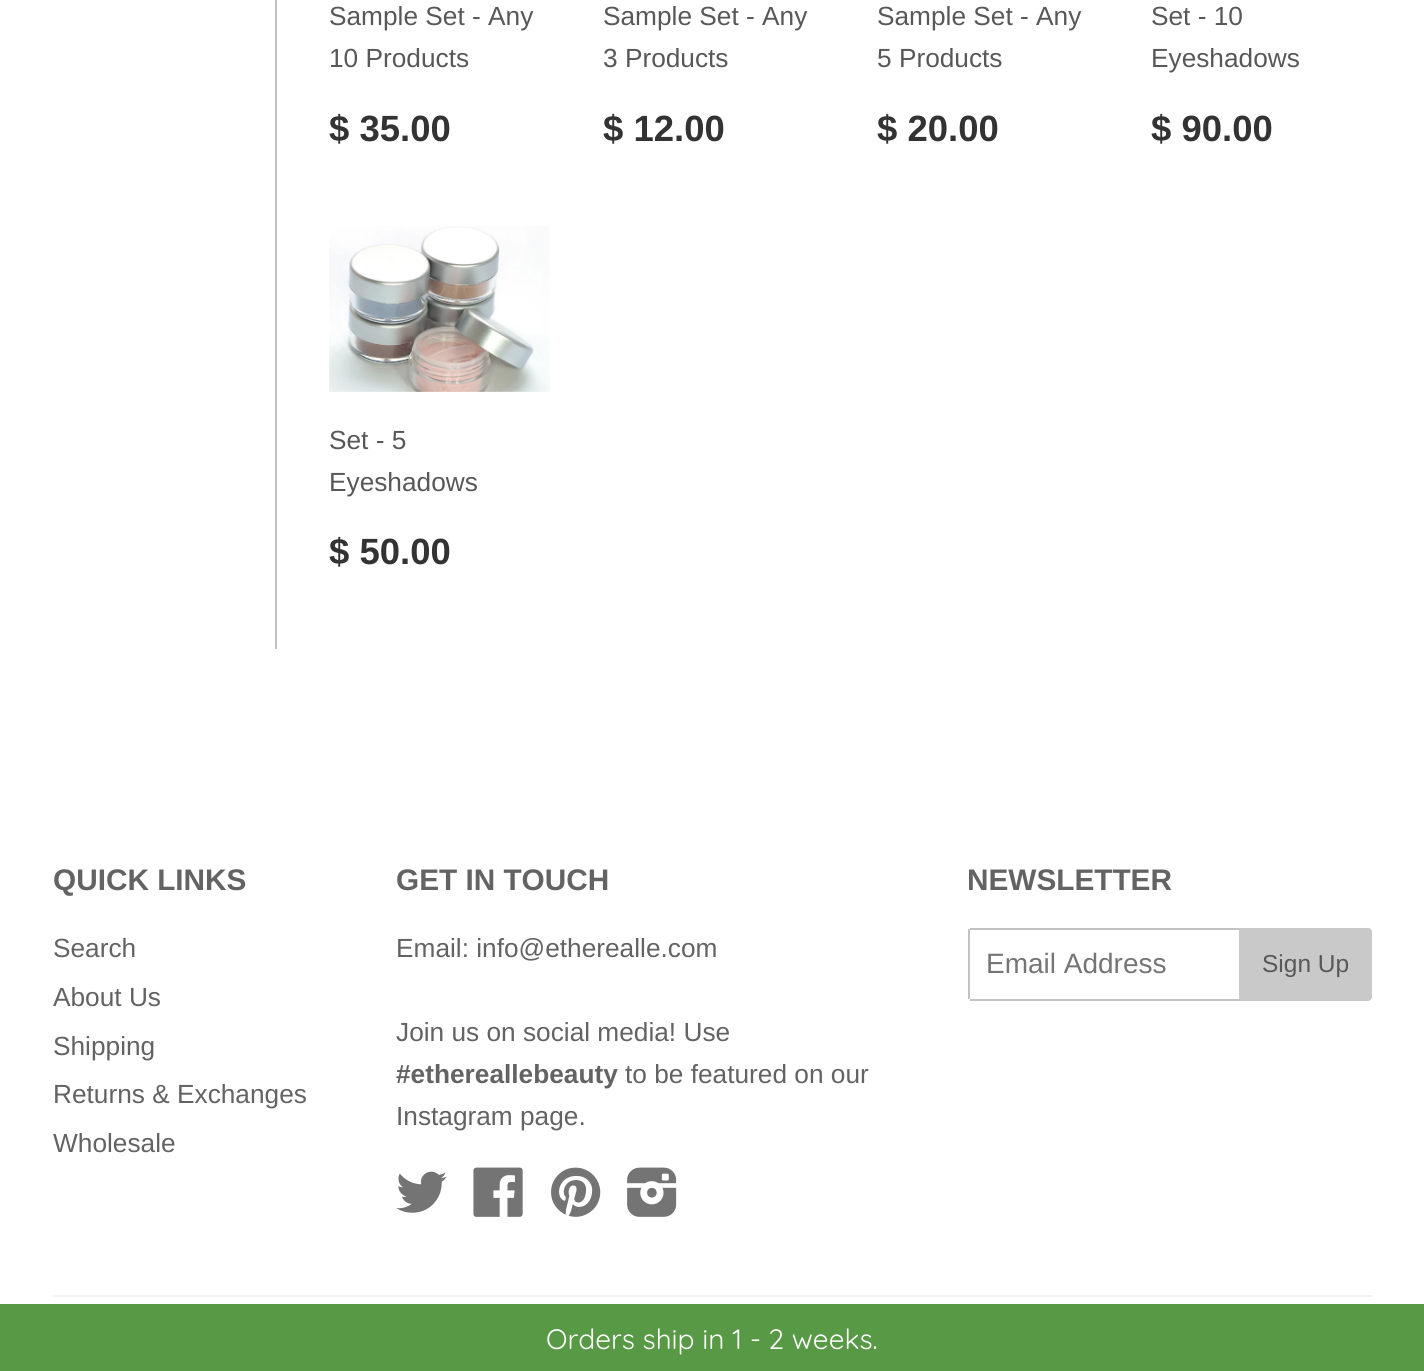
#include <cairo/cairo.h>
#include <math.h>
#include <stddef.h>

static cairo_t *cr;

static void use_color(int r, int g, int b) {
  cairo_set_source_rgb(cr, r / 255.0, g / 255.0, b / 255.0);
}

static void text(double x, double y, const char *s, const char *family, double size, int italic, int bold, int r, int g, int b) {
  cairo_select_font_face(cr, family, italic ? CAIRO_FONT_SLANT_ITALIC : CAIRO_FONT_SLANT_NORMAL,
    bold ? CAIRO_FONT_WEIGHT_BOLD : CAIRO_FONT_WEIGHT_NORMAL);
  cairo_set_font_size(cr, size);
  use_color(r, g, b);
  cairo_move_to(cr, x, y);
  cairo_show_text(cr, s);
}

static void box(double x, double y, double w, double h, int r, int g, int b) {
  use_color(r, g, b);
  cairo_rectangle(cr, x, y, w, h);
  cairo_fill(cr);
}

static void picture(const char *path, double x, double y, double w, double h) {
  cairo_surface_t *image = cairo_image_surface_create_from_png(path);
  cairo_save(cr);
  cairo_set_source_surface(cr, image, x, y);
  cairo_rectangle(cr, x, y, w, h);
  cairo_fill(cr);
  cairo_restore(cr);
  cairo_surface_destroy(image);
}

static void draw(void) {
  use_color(255, 255, 255);
  cairo_paint(cr);
  box(275, 0, 2, 649, 194, 194, 194);
  picture("img_01.png", 329, 226, 221, 166);
  picture("img_02.png", 396, 1171, 51, 42);
  picture("img_03.png", 473, 1167, 50, 50);
  picture("img_04.png", 551, 1167, 50, 50);
  picture("img_05.png", 627, 1167, 50, 50);
  box(970, 928, 269, 2, 194, 194, 194);
  box(970, 999, 269, 2, 194, 194, 194);
  box(968, 929, 2, 70, 194, 194, 194);
  use_color(201, 201, 201);
  cairo_new_path(cr);
  cairo_move_to(cr, 1239, 928);
  cairo_line_to(cr, 1368, 928);
  cairo_curve_to(cr, 1370, 928, 1372, 930, 1372, 932);
  cairo_line_to(cr, 1372, 997);
  cairo_curve_to(cr, 1372, 999, 1370, 1001, 1368, 1001);
  cairo_line_to(cr, 1239, 1001);
  cairo_close_path(cr);
  cairo_fill(cr);
  box(53, 1295, 1319, 2, 242, 242, 242);
  box(0, 1304, 1424, 67, 88, 153, 69);
  text(329, 25, "Sample Set - Any", "Liberation Sans", 26.25, 0, 0, 88, 88, 88);
  text(329, 67, "10 Products", "Liberation Sans", 26.25, 0, 0, 88, 88, 88);
  text(329, 141, "$ 35.00", "Liberation Sans", 36.5, 0, 1, 51, 51, 51);
  text(603, 25, "Sample Set - Any", "Liberation Sans", 26.25, 0, 0, 88, 88, 88);
  text(603, 67, "3 Products", "Liberation Sans", 26.25, 0, 0, 88, 88, 88);
  text(603, 141, "$ 12.00", "Liberation Sans", 36.5, 0, 1, 51, 51, 51);
  text(877, 25, "Sample Set - Any", "Liberation Sans", 26.25, 0, 0, 88, 88, 88);
  text(877, 67, "5 Products", "Liberation Sans", 26.25, 0, 0, 88, 88, 88);
  text(877, 141, "$ 20.00", "Liberation Sans", 36.5, 0, 1, 51, 51, 51);
  text(1151, 25, "Set - 10", "Liberation Sans", 26.25, 0, 0, 88, 88, 88);
  text(1151, 67, "Eyeshadows", "Liberation Sans", 26.25, 0, 0, 88, 88, 88);
  text(1151, 141, "$ 90.00", "Liberation Sans", 36.5, 0, 1, 51, 51, 51);
  text(329, 449, "Set - 5", "Liberation Sans", 26.25, 0, 0, 88, 88, 88);
  text(329, 491, "Eyeshadows", "Liberation Sans", 26.25, 0, 0, 88, 88, 88);
  text(329, 564, "$ 50.00", "Liberation Sans", 36.5, 0, 1, 51, 51, 51);
  text(53, 890, "QUICK LINKS", "Liberation Sans", 29.75, 0, 1, 99, 99, 99);
  text(53, 957, "Search", "Liberation Sans", 26.25, 0, 0, 99, 99, 99);
  text(53, 1006, "About Us", "Liberation Sans", 26.25, 0, 0, 99, 99, 99);
  text(53, 1055, "Shipping", "Liberation Sans", 26.25, 0, 0, 99, 99, 99);
  text(53, 1103, "Returns & Exchanges", "Liberation Sans", 26.25, 0, 0, 99, 99, 99);
  text(53, 1152, "Wholesale", "Liberation Sans", 26.25, 0, 0, 99, 99, 99);
  text(396, 890, "GET IN TOUCH", "Liberation Sans", 29.75, 0, 1, 99, 99, 99);
  text(396, 957, "Email: info@etherealle.com", "Liberation Sans", 26.25, 0, 0, 99, 99, 99);
  text(396, 1041, "Join us on social media! Use", "Liberation Sans", 26.25, 0, 0, 99, 99, 99);
  text(396, 1083, "#ethereallebeauty", "Liberation Sans", 26.25, 0, 1, 99, 99, 99);
  text(625, 1083, "to be featured on our", "Liberation Sans", 26.25, 0, 0, 99, 99, 99);
  text(396, 1125, "Instagram page.", "Liberation Sans", 26.25, 0, 0, 99, 99, 99);
  text(967, 890, "NEWSLETTER", "Liberation Sans", 29.75, 0, 1, 99, 99, 99);
  text(986, 973, "Email Address", "Liberation Sans", 28, 0, 0, 117, 117, 117);
  text(1262, 972, "Sign Up", "Liberation Sans", 24.5, 0, 0, 88, 88, 88);
  text(546, 1349, "Orders ship in 1 - 2 weeks.", "Quicksand Light", 28, 0, 0, 255, 255, 255);
}

int main(void) {
  cairo_surface_t *surface = cairo_image_surface_create(CAIRO_FORMAT_RGB24, 1424, 1371);
  cr = cairo_create(surface);
  cairo_font_options_t *options = cairo_font_options_create();
  cairo_font_options_set_hint_metrics(options, CAIRO_HINT_METRICS_OFF);
  cairo_font_options_set_hint_style(options, CAIRO_HINT_STYLE_NONE);
  cairo_set_font_options(cr, options);
  cairo_set_miter_limit(cr, 4);
  draw();
  cairo_surface_write_to_png(surface, "out.png");
  cairo_font_options_destroy(options);
  cairo_destroy(cr);
  cairo_surface_destroy(surface);
  return 0;
}
